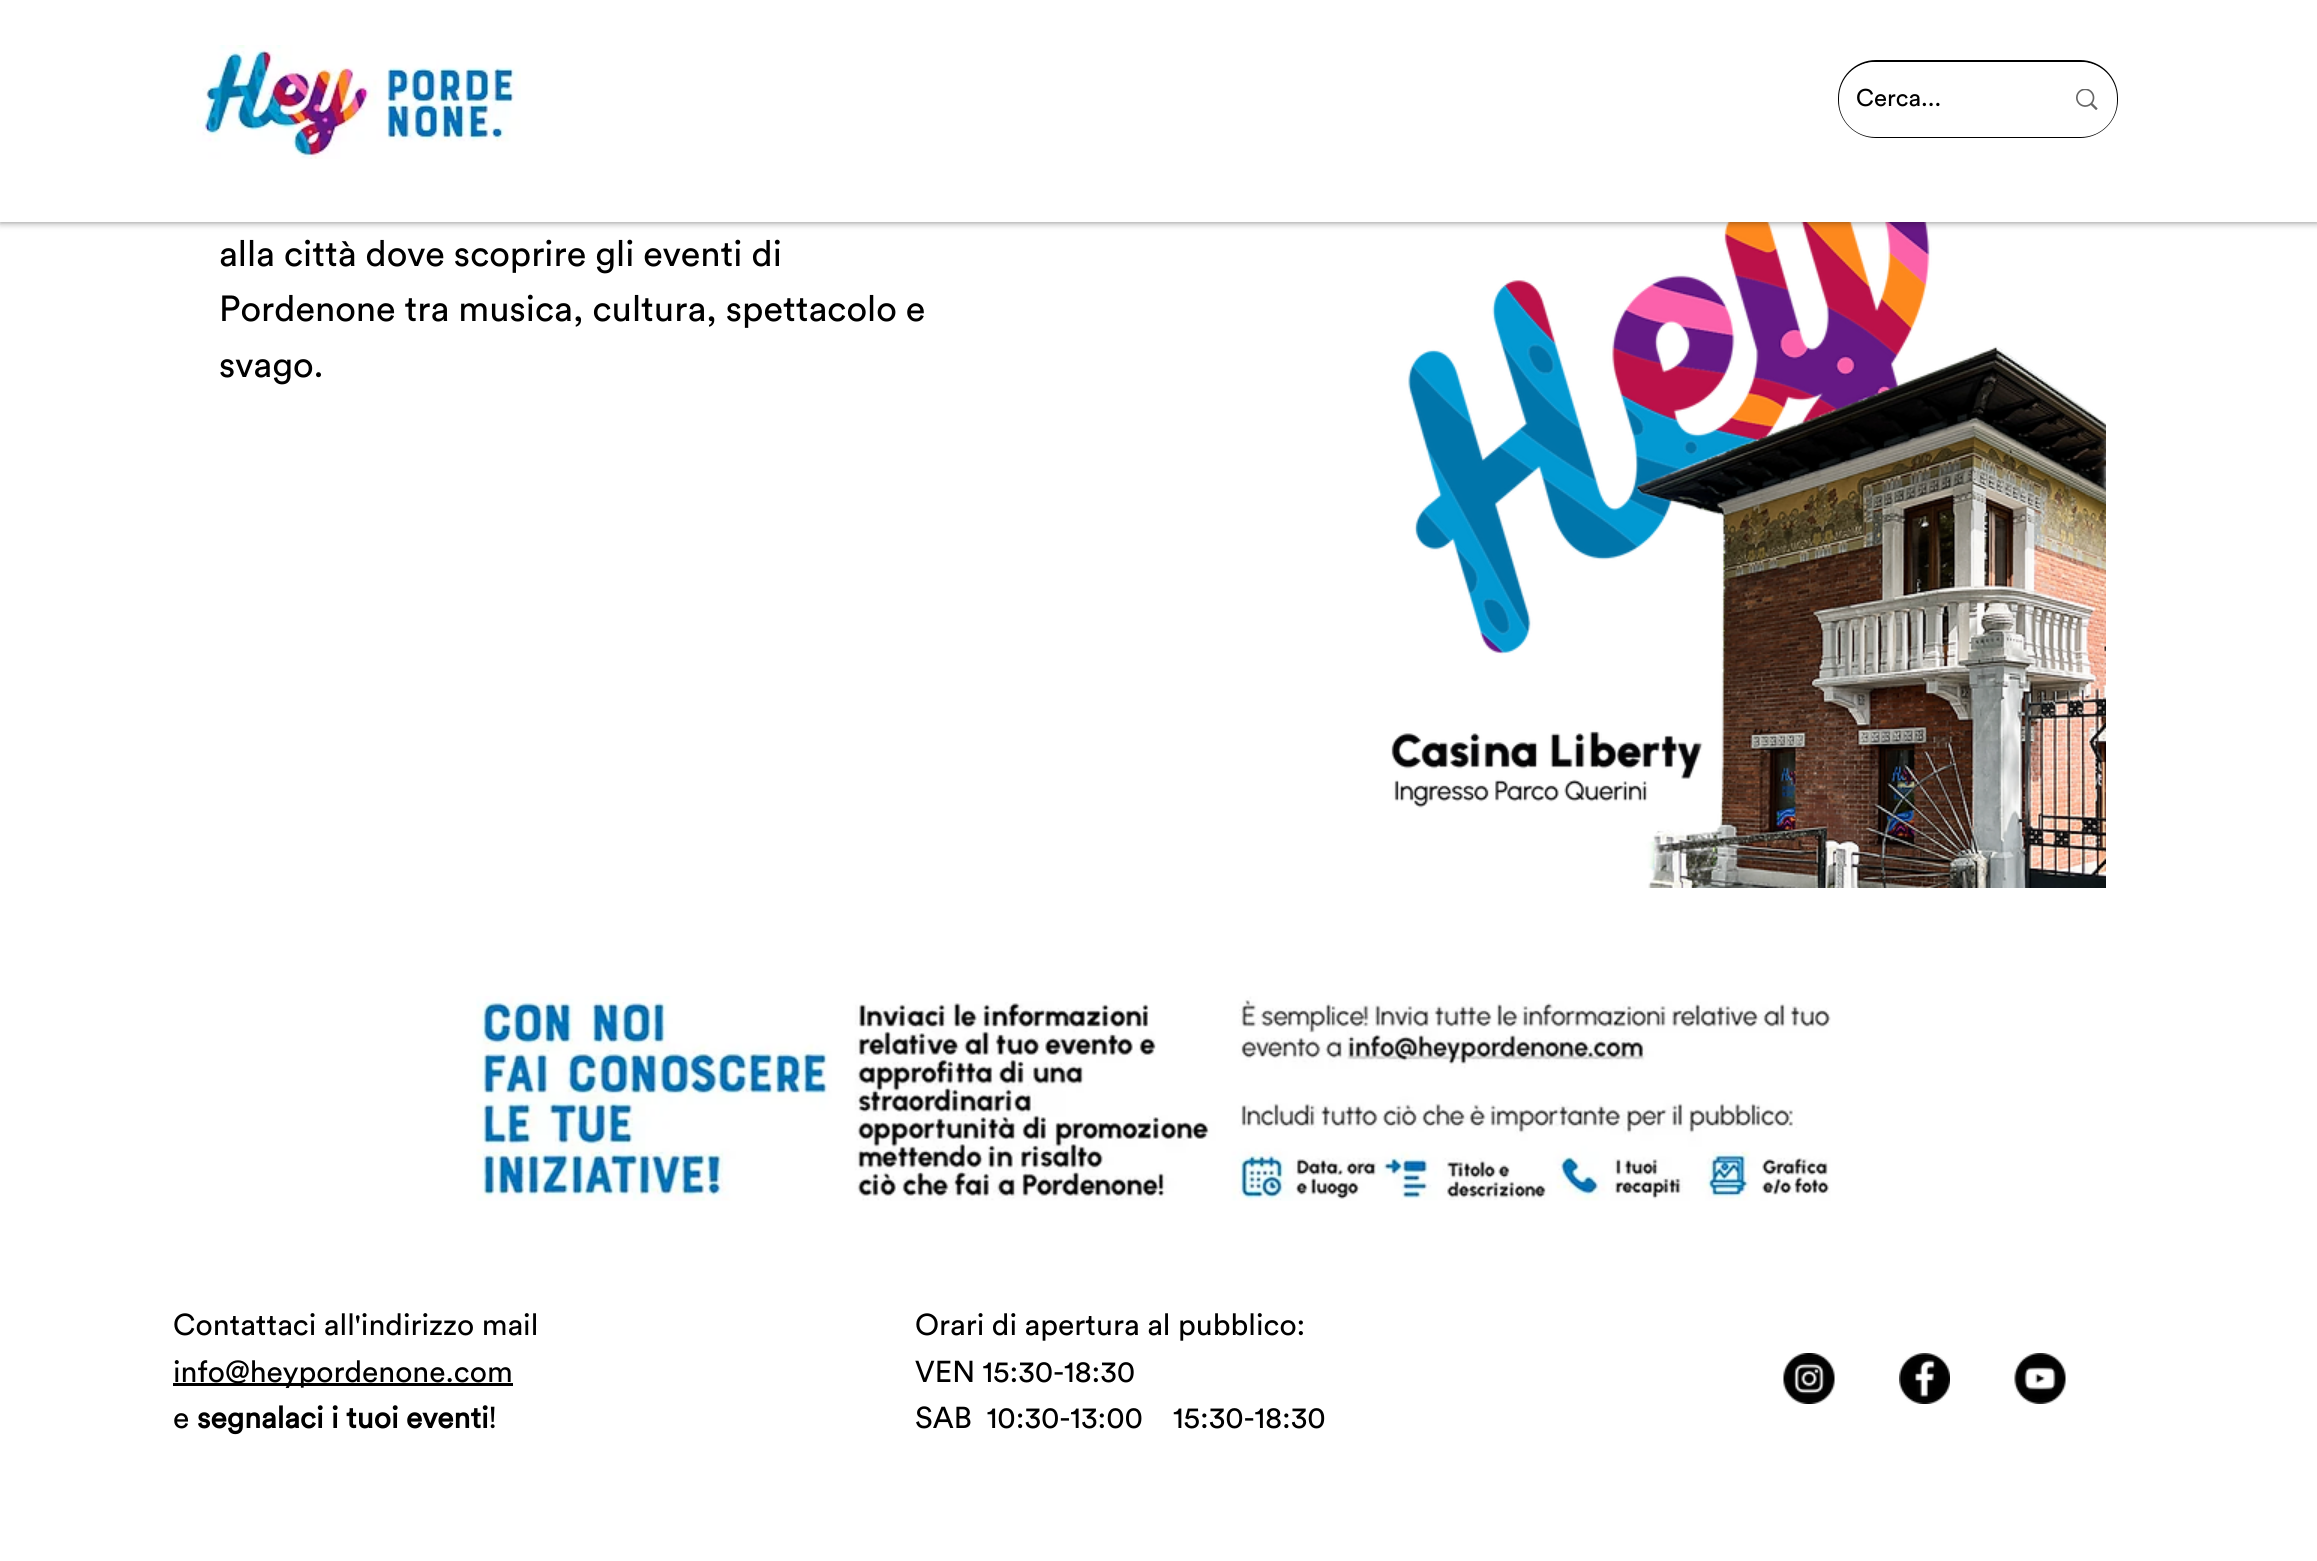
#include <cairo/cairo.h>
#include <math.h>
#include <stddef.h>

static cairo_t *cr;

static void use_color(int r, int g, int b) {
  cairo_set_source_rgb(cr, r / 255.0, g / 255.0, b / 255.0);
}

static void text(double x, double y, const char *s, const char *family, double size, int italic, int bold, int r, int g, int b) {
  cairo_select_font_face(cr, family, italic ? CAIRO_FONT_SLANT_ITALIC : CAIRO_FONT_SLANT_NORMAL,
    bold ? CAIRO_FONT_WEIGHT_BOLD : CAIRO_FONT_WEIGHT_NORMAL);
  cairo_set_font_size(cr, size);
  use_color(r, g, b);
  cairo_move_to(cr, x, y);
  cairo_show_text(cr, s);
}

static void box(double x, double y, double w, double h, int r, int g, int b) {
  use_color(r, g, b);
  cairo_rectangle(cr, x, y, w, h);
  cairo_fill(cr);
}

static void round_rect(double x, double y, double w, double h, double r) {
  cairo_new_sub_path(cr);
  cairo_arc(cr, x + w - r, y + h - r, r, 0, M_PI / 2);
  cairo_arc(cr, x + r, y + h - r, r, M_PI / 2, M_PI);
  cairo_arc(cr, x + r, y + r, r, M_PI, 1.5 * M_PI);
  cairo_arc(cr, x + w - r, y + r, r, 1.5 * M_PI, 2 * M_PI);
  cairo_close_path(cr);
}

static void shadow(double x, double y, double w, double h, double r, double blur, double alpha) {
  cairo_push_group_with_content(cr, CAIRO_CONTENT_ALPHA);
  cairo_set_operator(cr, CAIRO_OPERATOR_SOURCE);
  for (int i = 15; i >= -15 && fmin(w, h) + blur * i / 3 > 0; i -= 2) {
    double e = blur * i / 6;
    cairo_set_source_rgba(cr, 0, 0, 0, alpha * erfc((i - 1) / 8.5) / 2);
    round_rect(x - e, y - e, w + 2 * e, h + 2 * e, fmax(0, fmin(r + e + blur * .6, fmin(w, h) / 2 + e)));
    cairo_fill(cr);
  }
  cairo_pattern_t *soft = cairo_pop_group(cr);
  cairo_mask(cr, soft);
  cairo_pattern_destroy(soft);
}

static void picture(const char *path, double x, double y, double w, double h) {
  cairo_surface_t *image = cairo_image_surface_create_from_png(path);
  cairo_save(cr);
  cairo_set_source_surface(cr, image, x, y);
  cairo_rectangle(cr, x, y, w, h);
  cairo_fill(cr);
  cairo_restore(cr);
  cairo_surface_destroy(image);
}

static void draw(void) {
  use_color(255, 255, 255);
  cairo_paint(cr);
  picture("img_03.png", 1391, 222, 715, 666);
  use_color(0, 0, 0);
  shadow(0, 0, 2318, 222, 0, 4, 0.5);
  box(0, 0, 2317, 222, 255, 255, 255);
  picture("img_01.png", 196, 45, 325, 114);
  round_rect(1839, 61, 278, 76, 37);
  use_color(0, 0, 0);
  cairo_stroke(cr);
  use_color(255, 255, 255);
  round_rect(1839, 62, 278, 75, 36);
  cairo_fill(cr);
  picture("img_02.png", 2076, 89, 22, 21);
  picture("img_04.png", 476, 996, 1355, 205);
  box(173, 1383, 340, 3, 0, 0, 0);
  picture("img_05.png", 1783, 1353, 52, 51);
  picture("img_06.png", 1899, 1353, 51, 51);
  picture("img_07.png", 2014, 1353, 52, 51);
  text(1856, 106, "Cerca...", "Circular", 24, 0, 0, 0, 0, 0);
  text(219, 266, "alla città dove scoprire gli eventi di", "Circular", 36, 0, 0, 0, 0, 0);
  text(219, 321, "Pordenone tra musica, cultura, spettacolo e", "Circular", 36, 0, 0, 0, 0, 0);
  text(219, 377, "svago.", "Circular", 36, 0, 0, 0, 0, 0);
  text(173, 1335, "Contattaci all'indirizzo mail", "Circular", 30, 0, 0, 0, 0, 0);
  text(173, 1382, "info@heypordenone.com", "Circular", 30, 0, 0, 0, 0, 0);
  text(173, 1428, "e", "Circular", 30, 0, 0, 0, 0, 0);
  text(197, 1428, "segnalaci i tuoi eventi", "Circular", 30, 0, 1, 0, 0, 0);
  text(488, 1428, "!", "Circular", 30, 0, 0, 0, 0, 0);
  text(915, 1335, "Orari di apertura al pubblico:", "Circular", 30, 0, 0, 0, 0, 0);
  text(915, 1382, "VEN 15:30-18:30", "Circular", 30, 0, 0, 0, 0, 0);
  text(915, 1428, "SAB  10:30-13:00    15:30-18:30", "Circular", 30, 0, 0, 0, 0, 0);
}

int main(void) {
  cairo_surface_t *surface = cairo_image_surface_create(CAIRO_FORMAT_RGB24, 2317, 1561);
  cr = cairo_create(surface);
  cairo_font_options_t *options = cairo_font_options_create();
  cairo_font_options_set_hint_metrics(options, CAIRO_HINT_METRICS_OFF);
  cairo_font_options_set_hint_style(options, CAIRO_HINT_STYLE_NONE);
  cairo_set_font_options(cr, options);
  cairo_set_miter_limit(cr, 4);
  draw();
  cairo_surface_write_to_png(surface, "out.png");
  cairo_font_options_destroy(options);
  cairo_destroy(cr);
  cairo_surface_destroy(surface);
  return 0;
}
